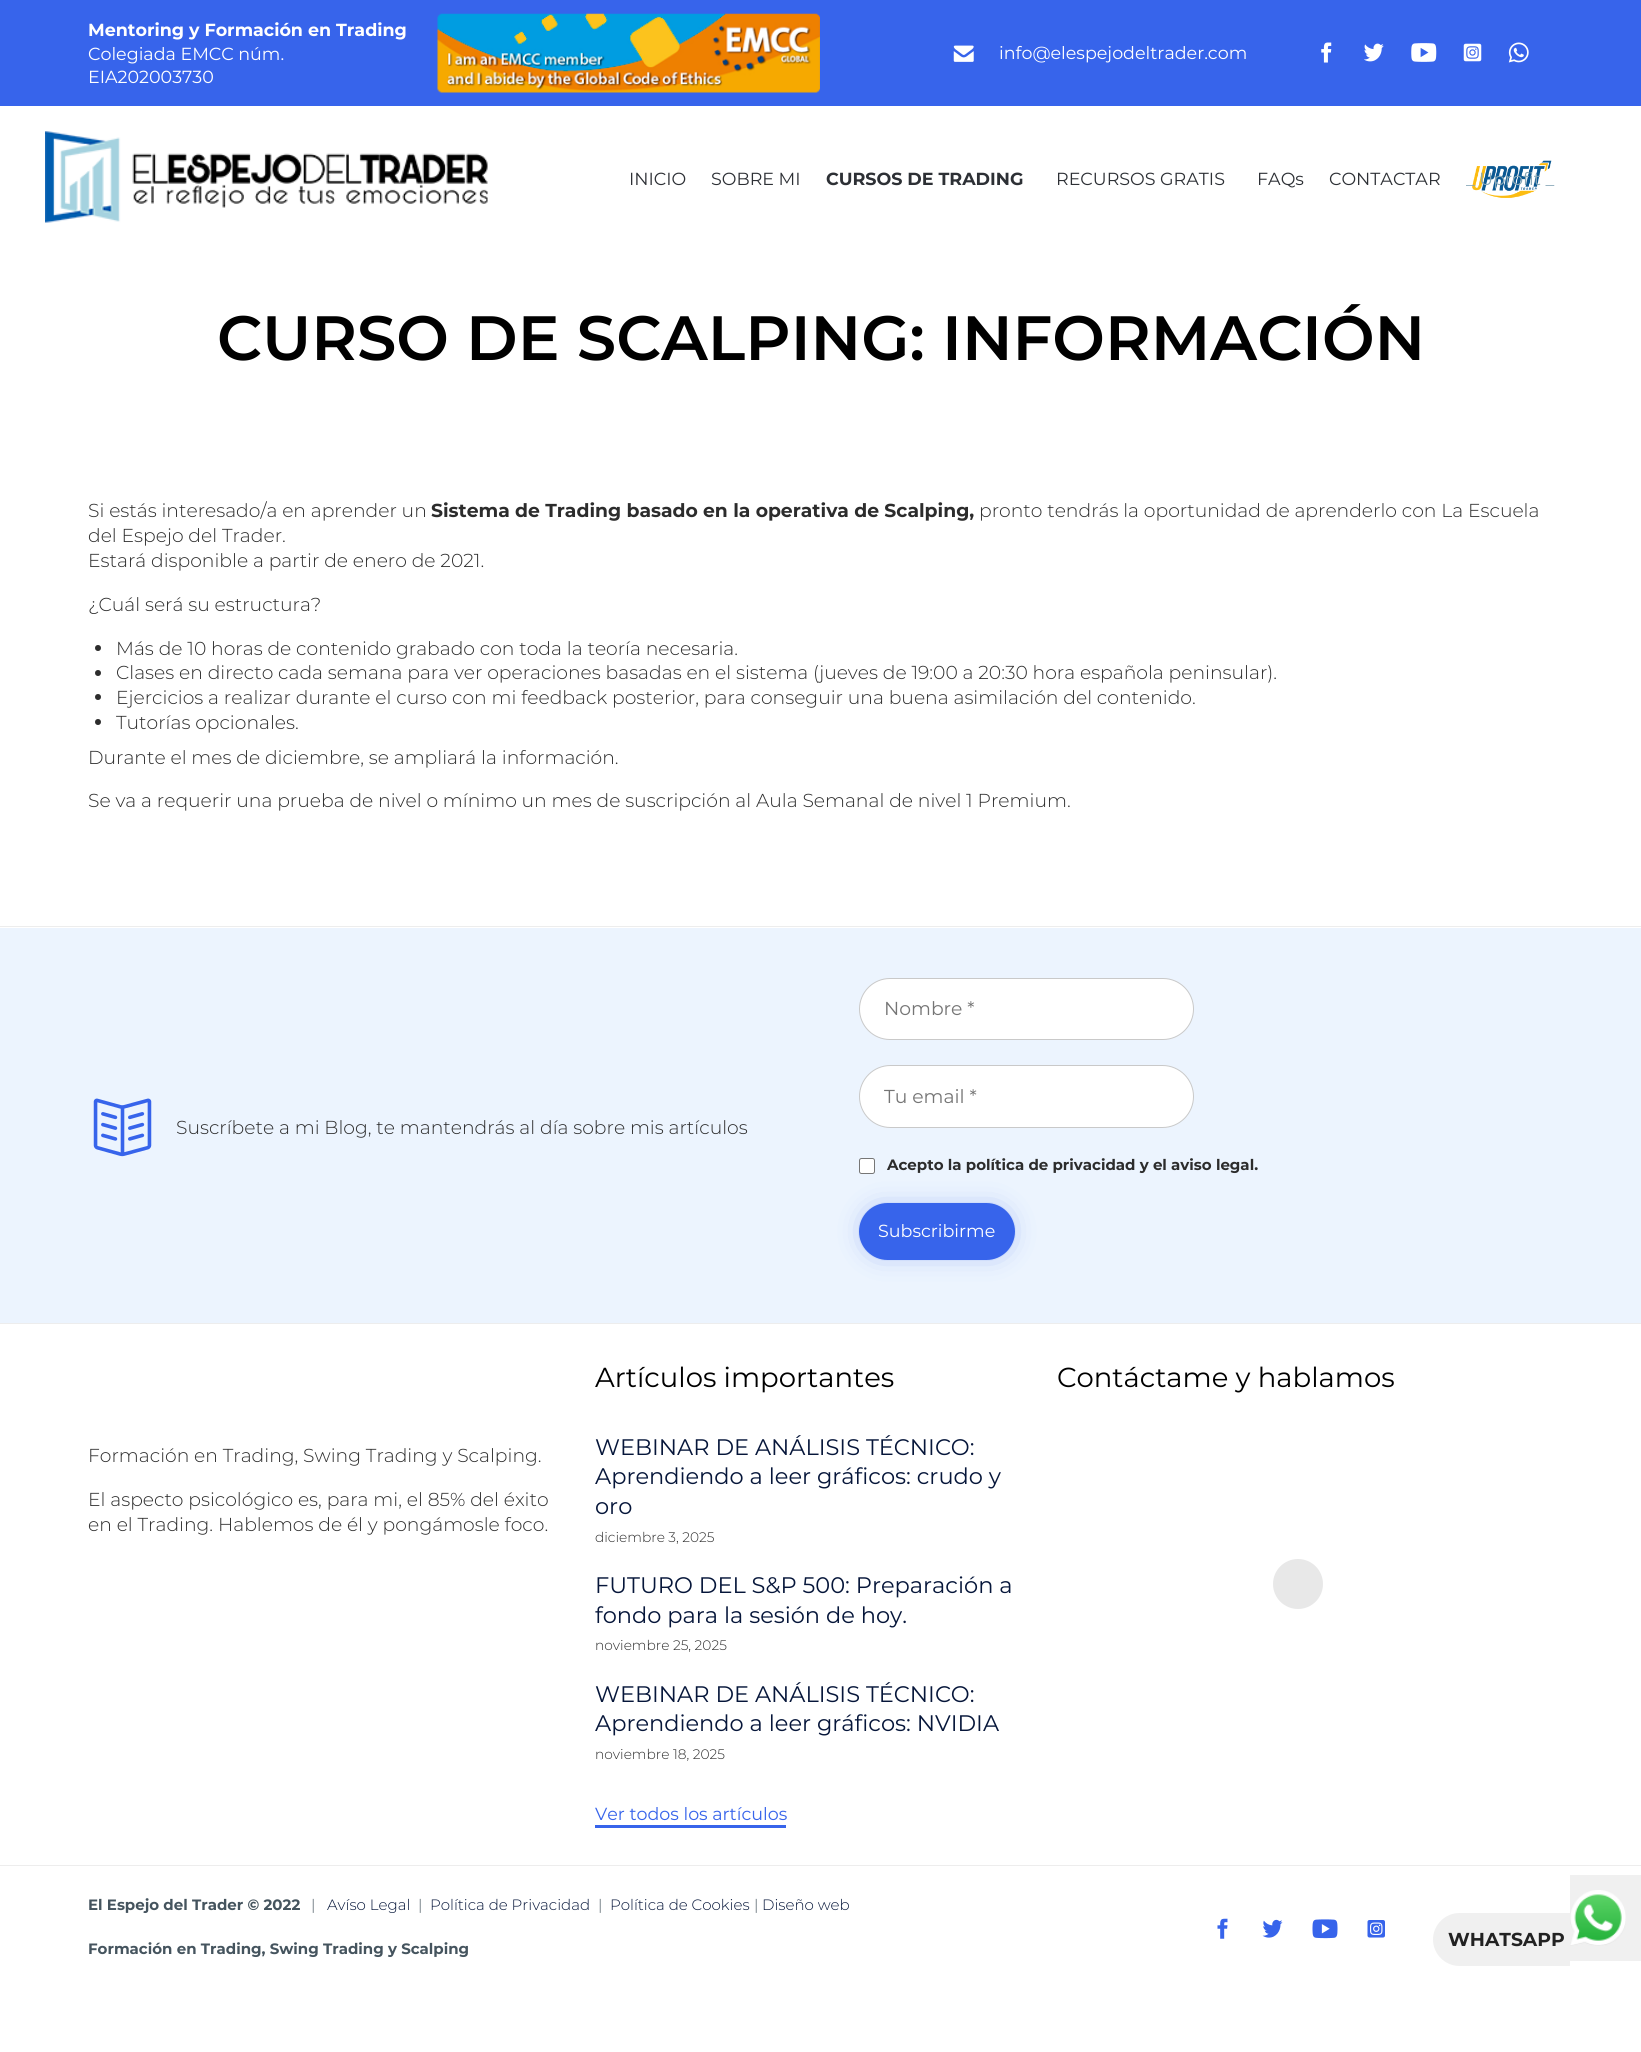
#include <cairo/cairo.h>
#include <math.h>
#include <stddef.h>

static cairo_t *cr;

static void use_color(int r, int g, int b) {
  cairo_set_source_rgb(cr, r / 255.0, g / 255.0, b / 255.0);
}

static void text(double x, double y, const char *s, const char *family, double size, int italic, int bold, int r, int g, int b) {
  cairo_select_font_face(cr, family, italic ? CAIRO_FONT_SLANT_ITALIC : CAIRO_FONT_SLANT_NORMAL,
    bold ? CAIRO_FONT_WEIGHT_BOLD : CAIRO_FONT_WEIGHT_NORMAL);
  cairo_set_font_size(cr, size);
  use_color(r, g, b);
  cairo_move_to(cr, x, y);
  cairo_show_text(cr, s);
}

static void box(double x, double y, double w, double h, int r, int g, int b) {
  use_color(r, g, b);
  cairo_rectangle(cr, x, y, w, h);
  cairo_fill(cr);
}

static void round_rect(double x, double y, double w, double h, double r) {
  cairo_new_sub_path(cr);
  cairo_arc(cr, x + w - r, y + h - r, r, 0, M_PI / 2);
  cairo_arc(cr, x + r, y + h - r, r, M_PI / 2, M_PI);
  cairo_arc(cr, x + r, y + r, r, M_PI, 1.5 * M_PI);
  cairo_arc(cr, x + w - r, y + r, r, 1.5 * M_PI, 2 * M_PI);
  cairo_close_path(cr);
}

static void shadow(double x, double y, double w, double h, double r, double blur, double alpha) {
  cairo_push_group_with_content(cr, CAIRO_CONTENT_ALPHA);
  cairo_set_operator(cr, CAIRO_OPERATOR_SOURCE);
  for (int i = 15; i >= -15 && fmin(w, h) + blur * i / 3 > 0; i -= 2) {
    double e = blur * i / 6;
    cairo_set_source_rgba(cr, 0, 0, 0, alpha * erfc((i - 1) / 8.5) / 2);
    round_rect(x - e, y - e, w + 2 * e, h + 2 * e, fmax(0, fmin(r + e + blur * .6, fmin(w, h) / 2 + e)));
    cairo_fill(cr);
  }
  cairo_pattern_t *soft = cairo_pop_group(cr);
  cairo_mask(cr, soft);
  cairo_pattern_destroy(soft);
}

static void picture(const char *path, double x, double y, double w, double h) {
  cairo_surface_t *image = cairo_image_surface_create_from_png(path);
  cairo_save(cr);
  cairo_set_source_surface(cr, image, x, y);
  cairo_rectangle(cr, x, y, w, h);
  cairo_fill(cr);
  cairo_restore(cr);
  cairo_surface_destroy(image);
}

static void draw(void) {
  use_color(255, 255, 255);
  cairo_paint(cr);
  box(0, 0, 1641, 106, 55, 100, 235);
  picture("img_01.png", 437, 13, 383, 80);
  picture("img_02.png", 953, 45, 21, 17);
  picture("img_03.png", 1321, 42, 11, 21);
  picture("img_04.png", 1364, 43, 20, 19);
  picture("img_05.png", 1411, 43, 26, 19);
  picture("img_06.png", 1463, 43, 19, 19);
  picture("img_07.png", 1508, 42, 21, 21);
  picture("img_08.png", 45, 131, 443, 92);
  picture("img_09.png", 1472, 160, 80, 38);
  use_color(44, 44, 44);
  cairo_arc(cr, 98, 648, 3, 0, 2 * M_PI);
  cairo_fill(cr);
  cairo_arc(cr, 98, 673, 3, 0, 2 * M_PI);
  cairo_fill(cr);
  cairo_arc(cr, 98, 697, 3, 0, 2 * M_PI);
  cairo_fill(cr);
  cairo_arc(cr, 98, 722, 3, 0, 2 * M_PI);
  cairo_fill(cr);
  box(0, 928, 1641, 395, 236, 244, 254);
  box(0, 926, 1641, 1, 237, 237, 237);
  picture("img_10.png", 93, 1098, 59, 59);
  use_color(255, 255, 255);
  round_rect(859.5, 978.5, 334, 61, 30.5);
  cairo_fill_preserve(cr);
  use_color(201, 201, 201);
  cairo_set_line_width(cr, 1);
  cairo_stroke(cr);
  use_color(255, 255, 255);
  round_rect(859.5, 1065.5, 334, 62, 31);
  cairo_fill_preserve(cr);
  use_color(201, 201, 201);
  cairo_stroke(cr);
  use_color(255, 255, 255);
  round_rect(859.5, 1158.5, 15, 15, 2);
  cairo_fill_preserve(cr);
  use_color(118, 118, 118);
  cairo_stroke(cr);
  use_color(55, 100, 235);
  shadow(876, 1220, 122, 23, 11.5, 15.5, 1);
  use_color(55, 100, 235);
  round_rect(859, 1203, 156, 57, 28.5);
  cairo_fill(cr);
  box(0, 1323, 1641, 1, 237, 237, 237);
  box(0, 1865, 1641, 1, 237, 237, 237);
  box(595, 1825, 191, 3, 55, 100, 235);
  use_color(232, 232, 232);
  cairo_arc(cr, 1298, 1584, 25, 0, 2 * M_PI);
  cairo_fill(cr);
  picture("img_11.png", 1217, 1918, 11, 21);
  picture("img_12.png", 1262, 1919, 21, 19);
  picture("img_13.png", 1312, 1919, 26, 20);
  picture("img_14.png", 1367, 1920, 18, 18);
  use_color(240, 240, 240);
  cairo_new_path(cr);
  cairo_move_to(cr, 1459.5, 1913);
  cairo_line_to(cr, 1565, 1913);
  cairo_line_to(cr, 1565, 1966);
  cairo_line_to(cr, 1459.5, 1966);
  cairo_curve_to(cr, 1445, 1966, 1433, 1954, 1433, 1939.5);
  cairo_curve_to(cr, 1433, 1925, 1445, 1913, 1459.5, 1913);
  cairo_close_path(cr);
  cairo_fill(cr);
  box(1565, 1913, 5, 53, 240, 240, 240);
  box(1570, 1875, 71, 86, 240, 240, 240);
  picture("img_15.png", 1570, 1890, 56, 56);
  text(88, 36, "Mentoring y Formación en Trading", "Montserrat", 17.5, 0, 1, 255, 255, 255);
  text(88, 60, "Colegiada EMCC núm.", "Montserrat", 17.5, 0, 0, 255, 255, 255);
  text(88, 83, "EIA202003730", "Montserrat", 17.5, 0, 0, 255, 255, 255);
  text(999, 59, "info@elespejodeltrader.com", "Montserrat", 17.5, 0, 0, 255, 255, 255);
  text(629, 185, "INICIO", "Montserrat", 17.5, 0, 0, 45, 48, 53);
  text(711, 185, "SOBRE MI", "Montserrat", 17.5, 0, 0, 45, 48, 53);
  text(826, 185, "CURSOS DE TRADING", "Montserrat", 17.5, 0, 1, 45, 48, 53);
  text(1056, 185, "RECURSOS GRATIS", "Montserrat", 17.5, 0, 0, 45, 48, 53);
  text(1257, 185, "FAQs", "Montserrat", 17.5, 0, 0, 45, 48, 53);
  text(1329, 185, "CONTACTAR", "Montserrat", 17.5, 0, 0, 45, 48, 53);
  text(1466, 185, "_ Uprofit _", "Montserrat", 17.5, 0, 0, 134, 167, 183);
  text(217, 360, "CURSO DE SCALPING: INFORMACIÓN", "Montserrat SemiBold", 62.5, 0, 0, 0, 0, 0);
  text(88, 517, "Si estás interesado/a en aprender un", "Montserrat Light", 18.75, 0, 0, 44, 44, 44);
  text(431, 517, "Sistema de Trading basado en la operativa de Scalping,", "Montserrat", 18.75, 0, 1, 44, 44, 44);
  text(979, 517, "pronto tendrás la oportunidad de aprenderlo con La Escuela", "Montserrat Light", 18.75, 0, 0, 44, 44, 44);
  text(88, 542, "del Espejo del Trader.", "Montserrat Light", 18.75, 0, 0, 44, 44, 44);
  text(88, 567, "Estará disponible a partir de enero de 2021.", "Montserrat Light", 18.75, 0, 0, 44, 44, 44);
  text(88, 611, "¿Cuál será su estructura?", "Montserrat Light", 18.75, 0, 0, 44, 44, 44);
  text(116, 655, "Más de 10 horas de contenido grabado con toda la teoría necesaria.", "Montserrat Light", 18.75, 0, 0, 44, 44, 44);
  text(116, 679, "Clases en directo cada semana para ver operaciones basadas en el sistema (jueves de 19:00 a 20:30 hora española peninsular).", "Montserrat Light", 18.75, 0, 0, 44, 44, 44);
  text(116, 704, "Ejercicios a realizar durante el curso con mi feedback posterior, para conseguir una buena asimilación del contenido.", "Montserrat Light", 18.75, 0, 0, 44, 44, 44);
  text(116, 729, "Tutorías opcionales.", "Montserrat Light", 18.75, 0, 0, 44, 44, 44);
  text(88, 764, "Durante el mes de diciembre, se ampliará la información.", "Montserrat Light", 18.75, 0, 0, 44, 44, 44);
  text(88, 807, "Se va a requerir una prueba de nivel o mínimo un mes de suscripción al Aula Semanal de nivel 1 Premium.", "Montserrat Light", 18.75, 0, 0, 44, 44, 44);
  text(176, 1134, "Suscríbete a mi Blog, te mantendrás al día sobre mis artículos", "Montserrat Light", 18.75, 0, 0, 44, 44, 44);
  text(884, 1015, "Nombre *", "Montserrat", 18.75, 0, 0, 117, 117, 117);
  text(884, 1103, "Tu email *", "Montserrat", 18.75, 0, 0, 117, 117, 117);
  text(887, 1170, "Acepto la política de privacidad y el aviso legal.", "Montserrat", 15, 0, 1, 44, 44, 44);
  text(878, 1237, "Subscribirme", "Montserrat", 17.5, 0, 0, 255, 255, 255);
  text(595, 1387, "Artículos importantes", "Montserrat", 27.5, 0, 0, 0, 0, 0);
  text(595, 1455, "WEBINAR DE ANÁLISIS TÉCNICO:", "Montserrat", 22.5, 0, 0, 6, 22, 58);
  text(595, 1484, "Aprendiendo a leer gráficos: crudo y", "Montserrat", 22.5, 0, 0, 6, 22, 58);
  text(595, 1514, "oro", "Montserrat", 22.5, 0, 0, 6, 22, 58);
  text(595, 1542, "diciembre 3, 2025", "Montserrat Light", 13.75, 0, 0, 44, 44, 44);
  text(595, 1593, "FUTURO DEL S&P 500: Preparación a", "Montserrat", 22.5, 0, 0, 6, 22, 58);
  text(595, 1623, "fondo para la sesión de hoy.", "Montserrat", 22.5, 0, 0, 6, 22, 58);
  text(595, 1650, "noviembre 25, 2025", "Montserrat Light", 13.75, 0, 0, 44, 44, 44);
  text(595, 1702, "WEBINAR DE ANÁLISIS TÉCNICO:", "Montserrat", 22.5, 0, 0, 6, 22, 58);
  text(595, 1731, "Aprendiendo a leer gráficos: NVIDIA", "Montserrat", 22.5, 0, 0, 6, 22, 58);
  text(595, 1759, "noviembre 18, 2025", "Montserrat Light", 13.75, 0, 0, 44, 44, 44);
  text(595, 1820, "Ver todos los artículos", "Montserrat", 17.5, 0, 0, 55, 100, 235);
  text(1057, 1387, "Contáctame y hablamos", "Montserrat", 27.5, 0, 0, 0, 0, 0);
  text(88, 1462, "Formación en Trading, Swing Trading y Scalping.", "Montserrat Light", 18.75, 0, 0, 44, 44, 44);
  text(88, 1506, "El aspecto psicológico es, para mi, el 85% del éxito", "Montserrat Light", 18.75, 0, 0, 44, 44, 44);
  text(88, 1531, "en el Trading. Hablemos de él y pongámosle foco.", "Montserrat Light", 18.75, 0, 0, 44, 44, 44);
  text(88, 1910, "El Espejo del Trader © 2022", "Montserrat", 15, 0, 1, 69, 84, 94);
  text(311, 1910, "|", "Montserrat Light", 15, 0, 0, 69, 84, 94);
  text(327, 1910, "Avíso Legal", "Montserrat Light", 15, 0, 0, 6, 22, 58);
  text(418, 1910, "|", "Montserrat Light", 15, 0, 0, 69, 84, 94);
  text(430, 1910, "Política de Privacidad", "Montserrat Light", 15, 0, 0, 6, 22, 58);
  text(598, 1910, "|", "Montserrat Light", 15, 0, 0, 69, 84, 94);
  text(610, 1910, "Política de Cookies", "Montserrat Light", 15, 0, 0, 6, 22, 58);
  text(754, 1910, "|", "Montserrat Light", 15, 0, 0, 69, 84, 94);
  text(762, 1910, "Diseño web", "Montserrat Light", 15, 0, 0, 6, 22, 58);
  text(88, 1954, "Formación en Trading, Swing Trading y Scalping", "Montserrat", 15, 0, 1, 69, 84, 94);
  text(1448, 1946, "WHATSAPP", "Montserrat", 18.75, 0, 1, 34, 34, 34);
}

int main(void) {
  cairo_surface_t *surface = cairo_image_surface_create(CAIRO_FORMAT_RGB24, 1641, 2052);
  cr = cairo_create(surface);
  cairo_font_options_t *options = cairo_font_options_create();
  cairo_font_options_set_hint_metrics(options, CAIRO_HINT_METRICS_OFF);
  cairo_font_options_set_hint_style(options, CAIRO_HINT_STYLE_NONE);
  cairo_set_font_options(cr, options);
  cairo_set_miter_limit(cr, 4);
  draw();
  cairo_surface_write_to_png(surface, "out.png");
  cairo_font_options_destroy(options);
  cairo_destroy(cr);
  cairo_surface_destroy(surface);
  return 0;
}
